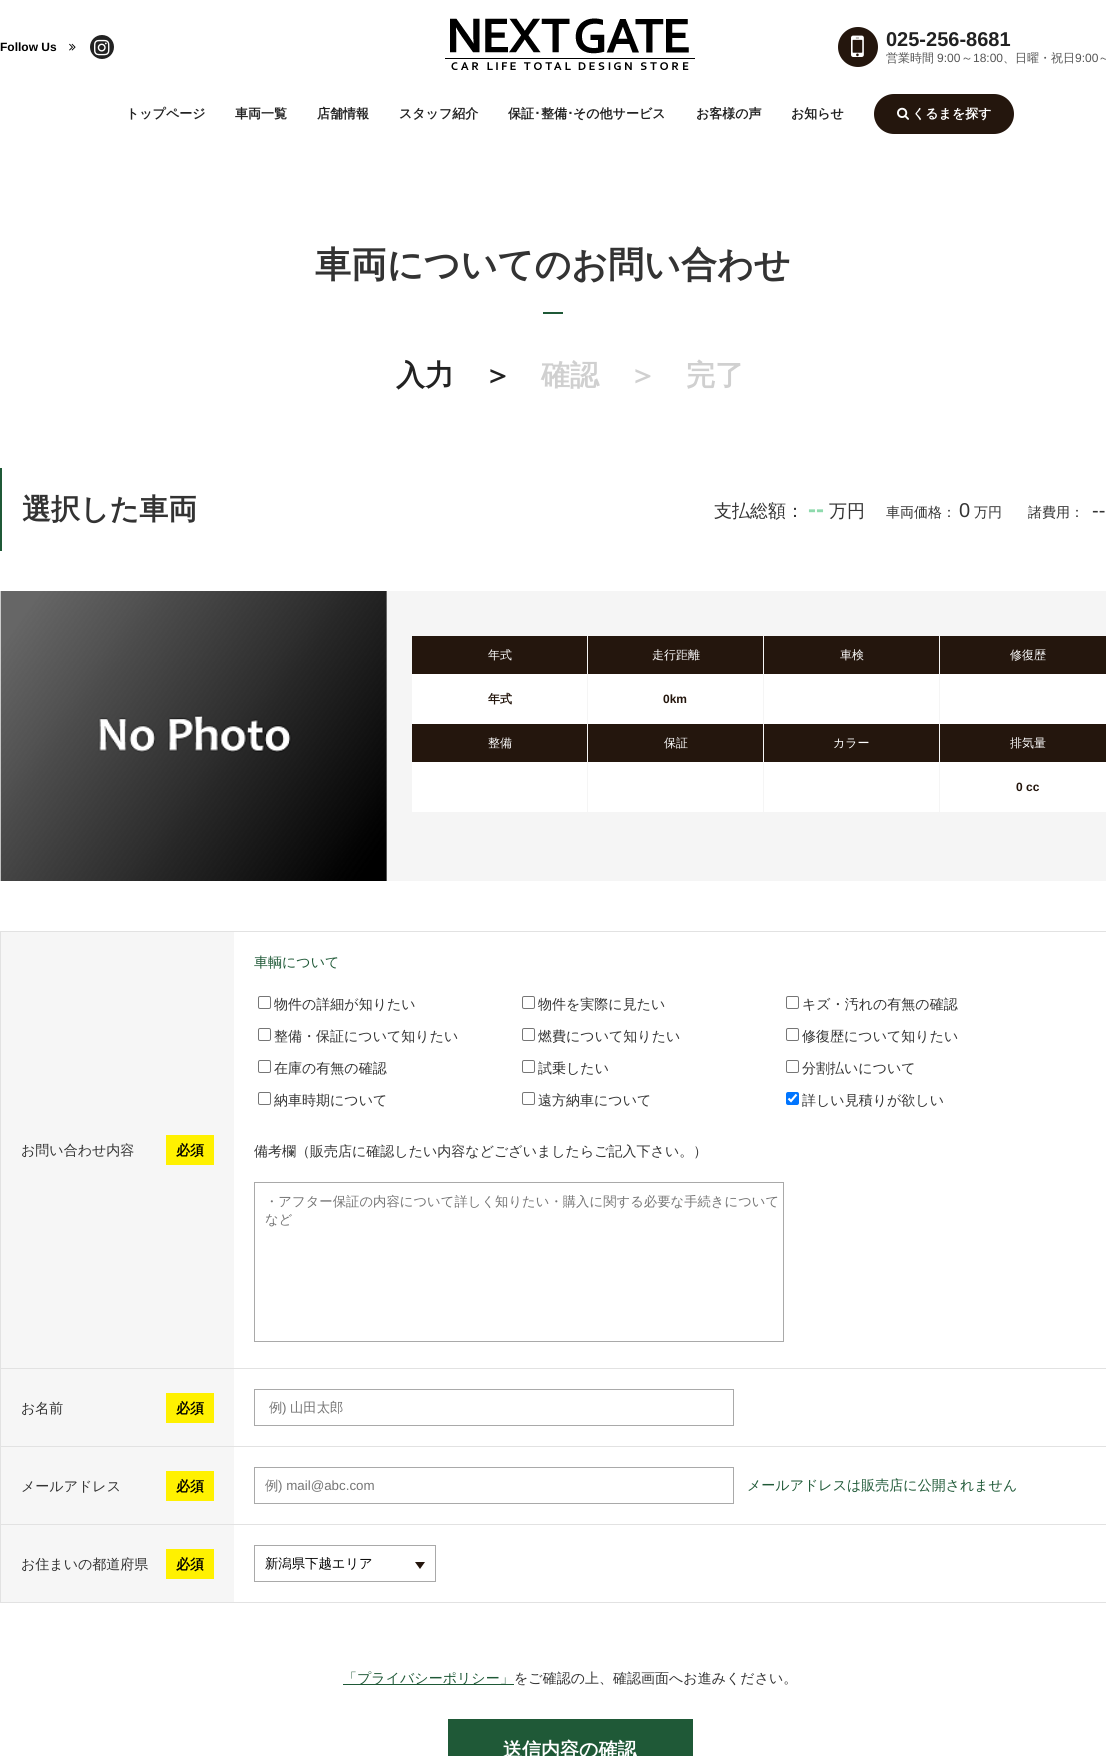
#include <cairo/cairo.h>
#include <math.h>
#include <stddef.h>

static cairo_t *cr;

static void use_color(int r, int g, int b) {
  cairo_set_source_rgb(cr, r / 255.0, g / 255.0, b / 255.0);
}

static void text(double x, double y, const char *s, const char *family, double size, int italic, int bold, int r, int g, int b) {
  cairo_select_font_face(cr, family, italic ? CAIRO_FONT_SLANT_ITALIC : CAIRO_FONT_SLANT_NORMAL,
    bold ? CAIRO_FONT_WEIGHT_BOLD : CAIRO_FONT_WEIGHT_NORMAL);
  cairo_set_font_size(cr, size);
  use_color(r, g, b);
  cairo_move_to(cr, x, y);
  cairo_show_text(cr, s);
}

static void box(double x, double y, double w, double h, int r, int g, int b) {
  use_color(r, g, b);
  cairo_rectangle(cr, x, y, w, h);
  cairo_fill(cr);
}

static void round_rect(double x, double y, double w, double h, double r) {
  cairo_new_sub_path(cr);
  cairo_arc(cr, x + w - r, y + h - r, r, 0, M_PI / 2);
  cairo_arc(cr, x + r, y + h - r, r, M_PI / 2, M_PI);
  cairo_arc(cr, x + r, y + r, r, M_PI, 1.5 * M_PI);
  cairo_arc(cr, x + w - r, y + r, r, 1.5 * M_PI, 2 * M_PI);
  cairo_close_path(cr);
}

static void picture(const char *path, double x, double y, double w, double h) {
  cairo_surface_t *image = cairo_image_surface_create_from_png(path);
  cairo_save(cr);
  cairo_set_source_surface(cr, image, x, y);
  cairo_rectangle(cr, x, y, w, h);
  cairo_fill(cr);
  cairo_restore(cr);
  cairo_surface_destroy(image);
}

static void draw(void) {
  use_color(255, 255, 255);
  cairo_paint(cr);
  use_color(36, 22, 13);
  cairo_arc(cr, 858, 47, 20, 0, 2 * M_PI);
  cairo_fill(cr);
  picture("img_01.png", 851, 35, 13, 22);
  box(543, 312, 20, 2, 31, 89, 55);
  box(0, 468, 2, 83, 31, 89, 55);
  picture("img_02.png", 0, 591, 387, 290);
  box(387, 591, 719, 290, 245, 245, 245);
  box(412, 674, 175, 50, 255, 255, 255);
  box(412, 636, 175, 38, 36, 22, 13);
  box(588, 674, 175, 50, 255, 255, 255);
  box(588, 636, 175, 38, 36, 22, 13);
  box(764, 674, 175, 50, 255, 255, 255);
  box(764, 636, 175, 38, 36, 22, 13);
  box(940, 674, 166, 50, 255, 255, 255);
  box(940, 636, 166, 38, 36, 22, 13);
  box(412, 762, 175, 50, 255, 255, 255);
  box(412, 724, 175, 38, 36, 22, 13);
  box(588, 762, 175, 50, 255, 255, 255);
  box(588, 724, 175, 38, 36, 22, 13);
  box(764, 762, 175, 50, 255, 255, 255);
  box(764, 724, 175, 38, 36, 22, 13);
  box(940, 762, 166, 50, 255, 255, 255);
  box(940, 724, 166, 38, 36, 22, 13);
  box(0, 931, 1106, 1, 226, 226, 226);
  box(0, 1602, 1106, 1, 226, 226, 226);
  box(0, 931, 1, 672, 226, 226, 226);
  box(0, 1368, 1106, 1, 226, 226, 226);
  box(1, 932, 233, 436, 246, 246, 246);
  box(166, 1135, 48, 30, 255, 241, 0);
  round_rect(258.5, 996.5, 12, 12, 1.5);
  use_color(118, 118, 118);
  cairo_set_line_width(cr, 1);
  cairo_stroke(cr);
  round_rect(522.5, 996.5, 12, 12, 1.5);
  cairo_stroke(cr);
  round_rect(786.5, 996.5, 12, 12, 1.5);
  cairo_stroke(cr);
  round_rect(258.5, 1028.5, 12, 12, 1.5);
  cairo_stroke(cr);
  round_rect(522.5, 1028.5, 12, 12, 1.5);
  cairo_stroke(cr);
  round_rect(786.5, 1028.5, 12, 12, 1.5);
  cairo_stroke(cr);
  round_rect(258.5, 1060.5, 12, 12, 1.5);
  cairo_stroke(cr);
  round_rect(522.5, 1060.5, 12, 12, 1.5);
  cairo_stroke(cr);
  round_rect(786.5, 1060.5, 12, 12, 1.5);
  cairo_stroke(cr);
  round_rect(258.5, 1092.5, 12, 12, 1.5);
  cairo_stroke(cr);
  round_rect(522.5, 1092.5, 12, 12, 1.5);
  cairo_stroke(cr);
  use_color(0, 117, 255);
  round_rect(786, 1092, 13, 13, 2);
  cairo_fill(cr);
  cairo_new_path(cr);
  cairo_move_to(cr, 788.5, 1098.5);
  cairo_line_to(cr, 791, 1101);
  cairo_line_to(cr, 796.5, 1094.5);
  use_color(255, 255, 255);
  cairo_set_line_width(cr, 2.1);
  cairo_stroke(cr);
  cairo_rectangle(cr, 254.5, 1182.5, 529, 159);
  use_color(169, 169, 169);
  cairo_set_line_width(cr, 1);
  cairo_stroke(cr);
  box(0, 1446, 1106, 1, 226, 226, 226);
  box(1, 1369, 233, 77, 246, 246, 246);
  box(166, 1393, 48, 30, 255, 241, 0);
  cairo_rectangle(cr, 254.5, 1389.5, 479, 36);
  use_color(169, 169, 169);
  cairo_stroke(cr);
  box(0, 1524, 1106, 1, 226, 226, 226);
  box(1, 1447, 233, 77, 246, 246, 246);
  box(166, 1471, 48, 30, 255, 241, 0);
  cairo_rectangle(cr, 254.5, 1467.5, 479, 36);
  use_color(169, 169, 169);
  cairo_stroke(cr);
  box(1, 1525, 233, 77, 246, 246, 246);
  box(166, 1549, 48, 30, 255, 241, 0);
  cairo_rectangle(cr, 254.5, 1545.5, 181, 36);
  use_color(169, 169, 169);
  cairo_stroke(cr);
  use_color(36, 22, 13);
  cairo_new_path(cr);
  cairo_move_to(cr, 415, 1562);
  cairo_line_to(cr, 425, 1562);
  cairo_line_to(cr, 420, 1569);
  cairo_close_path(cr);
  cairo_fill(cr);
  box(343, 1684, 171, 1, 31, 89, 55);
  box(448, 1719, 245, 37, 31, 89, 55);
  picture("img_03.png", 69, 43, 7, 8);
  use_color(34, 34, 34);
  cairo_arc(cr, 102, 47, 12, 0, 2 * M_PI);
  cairo_fill(cr);
  picture("img_04.png", 94, 39, 16, 17);
  picture("img_05.png", 445, 18, 250, 52);
  use_color(36, 22, 13);
  round_rect(874, 94, 140, 40, 20);
  cairo_fill(cr);
  picture("img_06.png", 897, 107, 12, 13);
  text(886, 46, "025-256-8681", "Liberation Sans", 20, 0, 1, 34, 34, 34);
  text(886, 62, "営業時間", "WenQuanYi Zen Hei Medium", 12, 0, 0, 85, 85, 85);
  text(937, 62, "9:00", "Liberation Sans", 12, 0, 0, 85, 85, 85);
  text(961, 62, "～", "WenQuanYi Zen Hei Medium", 12, 0, 0, 85, 85, 85);
  text(973, 62, "18:00", "Liberation Sans", 12, 0, 0, 85, 85, 85);
  text(1003, 62, "、日曜・祝日", "WenQuanYi Zen Hei Medium", 12, 0, 0, 85, 85, 85);
  text(1075, 62, "9:00", "Liberation Sans", 12, 0, 0, 85, 85, 85);
  text(1098, 62, "～", "WenQuanYi Zen Hei Medium", 12, 0, 0, 85, 85, 85);
  text(315, 277, "車両についてのお問い合わせ", "WenQuanYi Zen Hei", 36, 0, 1, 51, 51, 51);
  text(396, 385, "入力　＞", "WenQuanYi Zen Hei", 29, 0, 1, 34, 34, 34);
  text(541, 385, "確認　＞", "WenQuanYi Zen Hei", 29, 0, 1, 208, 208, 208);
  text(686, 385, "完了", "WenQuanYi Zen Hei", 29, 0, 1, 208, 208, 208);
  text(22, 519, "選択した車両", "WenQuanYi Zen Hei", 29, 0, 1, 51, 51, 51);
  text(714, 517, "支払総額：", "WenQuanYi Zen Hei Medium", 18, 0, 0, 51, 51, 51);
  text(808, 517, "--", "Liberation Sans", 24, 0, 1, 142, 218, 173);
  text(829, 517, "万円", "WenQuanYi Zen Hei Medium", 18, 0, 0, 51, 51, 51);
  text(886, 517, "車両価格：", "WenQuanYi Zen Hei Medium", 14, 0, 0, 51, 51, 51);
  text(959, 517, "0", "Liberation Sans", 20, 0, 0, 51, 51, 51);
  text(974, 517, "万円", "WenQuanYi Zen Hei Medium", 14, 0, 0, 51, 51, 51);
  text(1028, 517, "諸費用：", "WenQuanYi Zen Hei Medium", 14, 0, 0, 51, 51, 51);
  text(1092, 517, "--", "Liberation Sans", 20, 0, 0, 51, 51, 51);
  text(488, 659, "年式", "WenQuanYi Zen Hei Medium", 12, 0, 0, 255, 255, 255);
  text(488, 703, "年式", "WenQuanYi Zen Hei", 12, 0, 1, 36, 22, 13);
  text(652, 659, "走行距離", "WenQuanYi Zen Hei Medium", 12, 0, 0, 255, 255, 255);
  text(663, 703, "0km", "Liberation Sans", 12, 0, 1, 36, 22, 13);
  text(840, 659, "車検", "WenQuanYi Zen Hei Medium", 12, 0, 0, 255, 255, 255);
  text(1010, 659, "修復歴", "WenQuanYi Zen Hei Medium", 12, 0, 0, 255, 255, 255);
  text(488, 747, "整備", "WenQuanYi Zen Hei Medium", 12, 0, 0, 255, 255, 255);
  text(664, 747, "保証", "WenQuanYi Zen Hei Medium", 12, 0, 0, 255, 255, 255);
  text(833, 747, "カラー", "WenQuanYi Zen Hei Medium", 12, 0, 0, 255, 255, 255);
  text(1010, 747, "排気量", "WenQuanYi Zen Hei Medium", 12, 0, 0, 255, 255, 255);
  text(1016, 791, "0 cc", "Liberation Sans", 12, 0, 1, 36, 22, 13);
  text(21, 1155, "お問い合わせ内容", "WenQuanYi Zen Hei Medium", 14, 0, 0, 51, 51, 51);
  text(176, 1155, "必須", "WenQuanYi Zen Hei", 14, 0, 1, 0, 0, 0);
  text(254, 967, "車輌について", "WenQuanYi Zen Hei Medium", 14, 0, 0, 31, 89, 55);
  text(274, 1009, "物件の詳細が知りたい", "WenQuanYi Zen Hei Medium", 14, 0, 0, 51, 51, 51);
  text(538, 1009, "物件を実際に見たい", "WenQuanYi Zen Hei Medium", 14, 0, 0, 51, 51, 51);
  text(802, 1009, "キズ・汚れの有無の確認", "WenQuanYi Zen Hei Medium", 14, 0, 0, 51, 51, 51);
  text(274, 1041, "整備・保証について知りたい", "WenQuanYi Zen Hei Medium", 14, 0, 0, 51, 51, 51);
  text(538, 1041, "燃費について知りたい", "WenQuanYi Zen Hei Medium", 14, 0, 0, 51, 51, 51);
  text(802, 1041, "修復歴について知りたい", "WenQuanYi Zen Hei Medium", 14, 0, 0, 51, 51, 51);
  text(274, 1073, "在庫の有無の確認", "WenQuanYi Zen Hei Medium", 14, 0, 0, 51, 51, 51);
  text(538, 1073, "試乗したい", "WenQuanYi Zen Hei Medium", 14, 0, 0, 51, 51, 51);
  text(802, 1073, "分割払いについて", "WenQuanYi Zen Hei Medium", 14, 0, 0, 51, 51, 51);
  text(274, 1105, "納車時期について", "WenQuanYi Zen Hei Medium", 14, 0, 0, 51, 51, 51);
  text(538, 1105, "遠方納車について", "WenQuanYi Zen Hei Medium", 14, 0, 0, 51, 51, 51);
  text(802, 1105, "詳しい見積りが欲しい", "WenQuanYi Zen Hei Medium", 14, 0, 0, 51, 51, 51);
  text(254, 1156, "備考欄（販売店に確認したい内容などございましたらご記入下さい。）", "WenQuanYi Zen Hei Medium", 14, 0, 0, 51, 51, 51);
  text(265, 1206, "・アフター保証の内容について詳しく知りたい・購入に関する必要な手続きについて", "WenQuanYi Zen Hei Medium", 13.35, 0, 0, 117, 117, 117);
  text(265, 1224, "など", "WenQuanYi Zen Hei Medium", 13.35, 0, 0, 117, 117, 117);
  text(21, 1413, "お名前", "WenQuanYi Zen Hei Medium", 14, 0, 0, 51, 51, 51);
  text(176, 1413, "必須", "WenQuanYi Zen Hei", 14, 0, 1, 0, 0, 0);
  text(269, 1412, "例", "WenQuanYi Zen Hei Medium", 13.35, 0, 0, 117, 117, 117);
  text(282, 1412, ")", "Liberation Sans", 13.35, 0, 0, 117, 117, 117);
  text(290, 1412, "山田太郎", "WenQuanYi Zen Hei Medium", 13.35, 0, 0, 117, 117, 117);
  text(21, 1491, "メールアドレス", "WenQuanYi Zen Hei Medium", 14, 0, 0, 51, 51, 51);
  text(176, 1491, "必須", "WenQuanYi Zen Hei", 14, 0, 1, 0, 0, 0);
  text(265, 1490, "例", "WenQuanYi Zen Hei Medium", 13.35, 0, 0, 117, 117, 117);
  text(278, 1490, ") mail@abc.com", "Liberation Sans", 13.35, 0, 0, 117, 117, 117);
  text(747, 1490, "メールアドレスは販売店に公開されません", "WenQuanYi Zen Hei Medium", 14, 0, 0, 31, 89, 55);
  text(21, 1569, "お住まいの都道府県", "WenQuanYi Zen Hei Medium", 14, 0, 0, 51, 51, 51);
  text(176, 1569, "必須", "WenQuanYi Zen Hei", 14, 0, 1, 0, 0, 0);
  text(265, 1568, "新潟県下越エリア", "WenQuanYi Zen Hei Medium", 13.35, 0, 0, 0, 0, 0);
  text(343, 1683, "「プライバシーポリシー」", "WenQuanYi Zen Hei Medium", 14, 0, 0, 31, 89, 55);
  text(514, 1683, "をご確認の上、確認画面へお進みください。", "WenQuanYi Zen Hei Medium", 14, 0, 0, 51, 51, 51);
  text(503, 1756, "送信内容の確認", "WenQuanYi Zen Hei", 19, 0, 1, 255, 255, 255);
  text(0, 51, "Follow Us", "Liberation Sans", 12, 0, 1, 0, 0, 0);
  text(126, 118, "トップページ", "WenQuanYi Zen Hei", 13, 0, 1, 34, 34, 34);
  text(235, 118, "車両一覧", "WenQuanYi Zen Hei", 13, 0, 1, 34, 34, 34);
  text(317, 118, "店舗情報", "WenQuanYi Zen Hei", 13, 0, 1, 34, 34, 34);
  text(399, 118, "スタッフ紹介", "WenQuanYi Zen Hei", 13, 0, 1, 34, 34, 34);
  text(508, 118, "保証", "WenQuanYi Zen Hei", 13, 0, 1, 34, 34, 34);
  text(534, 118, "･", "IPAPGothic", 13, 0, 1, 34, 34, 34);
  text(541, 118, "整備", "WenQuanYi Zen Hei", 13, 0, 1, 34, 34, 34);
  text(567, 118, "･", "IPAPGothic", 13, 0, 1, 34, 34, 34);
  text(573, 118, "その他サービス", "WenQuanYi Zen Hei", 13, 0, 1, 34, 34, 34);
  text(696, 118, "お客様の声", "WenQuanYi Zen Hei", 13, 0, 1, 34, 34, 34);
  text(791, 118, "お知らせ", "WenQuanYi Zen Hei", 13, 0, 1, 34, 34, 34);
  text(912, 118, "くるまを探す", "WenQuanYi Zen Hei", 13, 0, 1, 255, 255, 255);
}

int main(void) {
  cairo_surface_t *surface = cairo_image_surface_create(CAIRO_FORMAT_RGB24, 1106, 1756);
  cr = cairo_create(surface);
  cairo_font_options_t *options = cairo_font_options_create();
  cairo_font_options_set_hint_metrics(options, CAIRO_HINT_METRICS_OFF);
  cairo_font_options_set_hint_style(options, CAIRO_HINT_STYLE_NONE);
  cairo_set_font_options(cr, options);
  cairo_set_miter_limit(cr, 4);
  draw();
  cairo_surface_write_to_png(surface, "out.png");
  cairo_font_options_destroy(options);
  cairo_destroy(cr);
  cairo_surface_destroy(surface);
  return 0;
}
